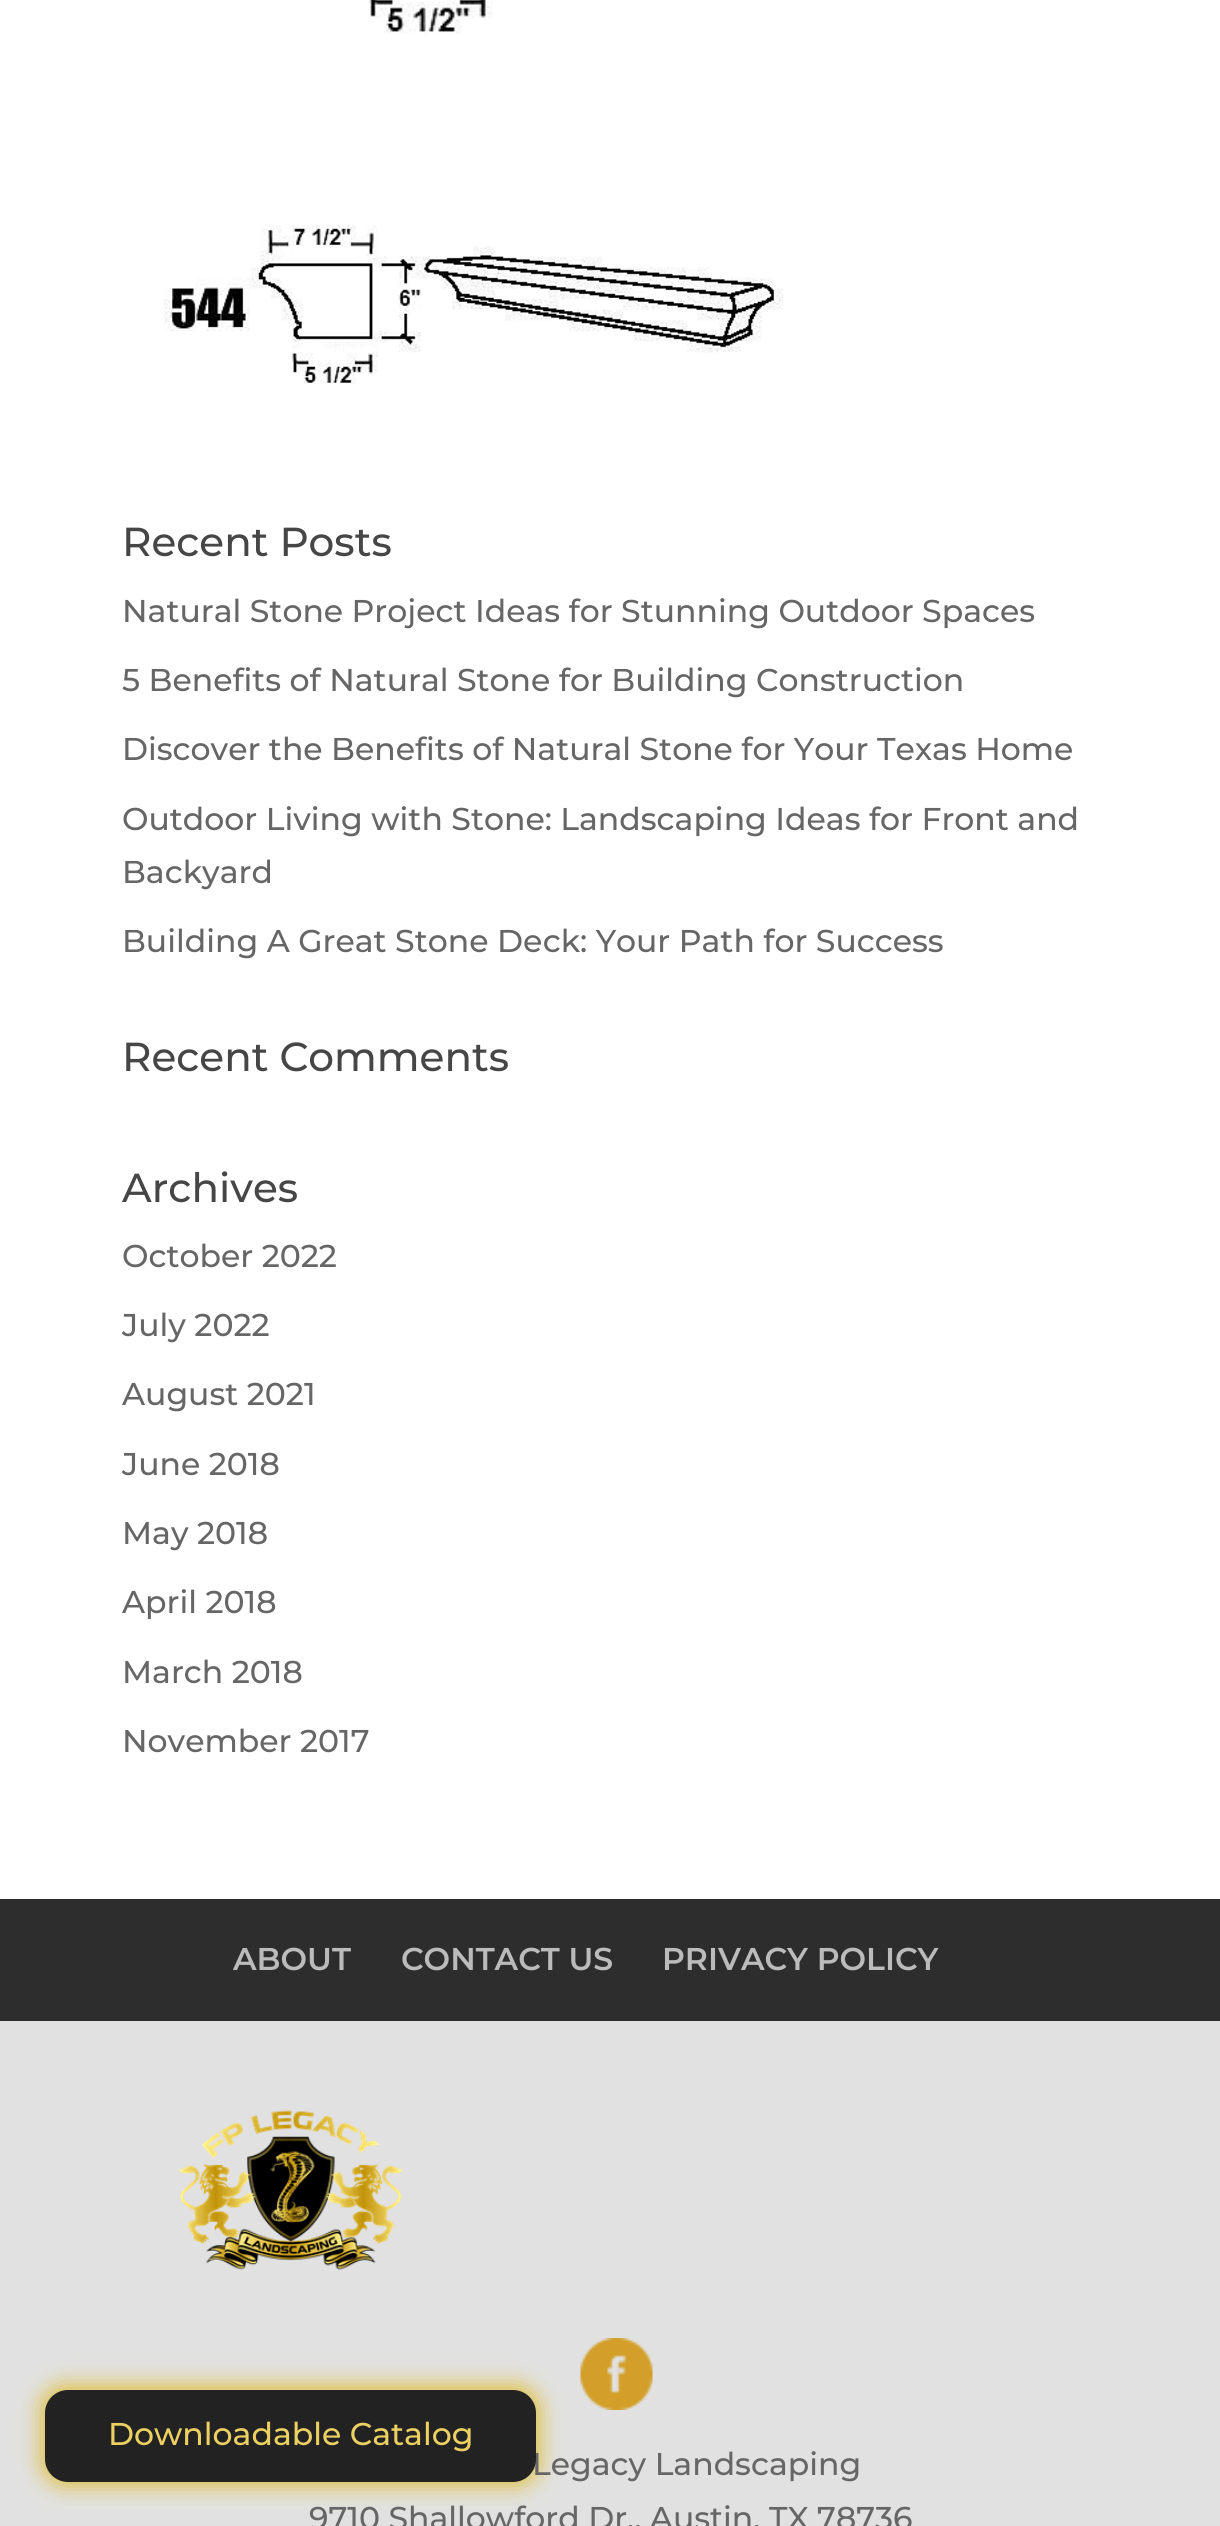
#include <cairo/cairo.h>
#include <math.h>
#include <stddef.h>

static cairo_t *cr;

static void use_color(int r, int g, int b) {
  cairo_set_source_rgb(cr, r / 255.0, g / 255.0, b / 255.0);
}

static void text(double x, double y, const char *s, const char *family, double size, int italic, int bold, int r, int g, int b) {
  cairo_select_font_face(cr, family, italic ? CAIRO_FONT_SLANT_ITALIC : CAIRO_FONT_SLANT_NORMAL,
    bold ? CAIRO_FONT_WEIGHT_BOLD : CAIRO_FONT_WEIGHT_NORMAL);
  cairo_set_font_size(cr, size);
  use_color(r, g, b);
  cairo_move_to(cr, x, y);
  cairo_show_text(cr, s);
}

static void box(double x, double y, double w, double h, int r, int g, int b) {
  use_color(r, g, b);
  cairo_rectangle(cr, x, y, w, h);
  cairo_fill(cr);
}

static void round_rect(double x, double y, double w, double h, double r) {
  cairo_new_sub_path(cr);
  cairo_arc(cr, x + w - r, y + h - r, r, 0, M_PI / 2);
  cairo_arc(cr, x + r, y + h - r, r, M_PI / 2, M_PI);
  cairo_arc(cr, x + r, y + r, r, M_PI, 1.5 * M_PI);
  cairo_arc(cr, x + w - r, y + r, r, 1.5 * M_PI, 2 * M_PI);
  cairo_close_path(cr);
}

static void shadow(double x, double y, double w, double h, double r, double blur, double alpha) {
  cairo_push_group_with_content(cr, CAIRO_CONTENT_ALPHA);
  cairo_set_operator(cr, CAIRO_OPERATOR_SOURCE);
  for (int i = 15; i >= -15 && fmin(w, h) + blur * i / 3 > 0; i -= 2) {
    double e = blur * i / 6;
    cairo_set_source_rgba(cr, 0, 0, 0, alpha * erfc((i - 1) / 8.5) / 2);
    round_rect(x - e, y - e, w + 2 * e, h + 2 * e, fmax(0, fmin(r + e + blur * .6, fmin(w, h) / 2 + e)));
    cairo_fill(cr);
  }
  cairo_pattern_t *soft = cairo_pop_group(cr);
  cairo_mask(cr, soft);
  cairo_pattern_destroy(soft);
}

static void picture(const char *path, double x, double y, double w, double h) {
  cairo_surface_t *image = cairo_image_surface_create_from_png(path);
  cairo_save(cr);
  cairo_set_source_surface(cr, image, x, y);
  cairo_rectangle(cr, x, y, w, h);
  cairo_fill(cr);
  cairo_restore(cr);
  cairo_surface_destroy(image);
}

static void draw(void) {
  use_color(255, 255, 255);
  cairo_paint(cr);
  picture("img_01.png", 368, 0, 125, 34);
  picture("img_02.png", 164, 225, 620, 159);
  box(0, 1899, 1220, 122, 45, 45, 45);
  box(0, 2021, 1220, 505, 225, 225, 225);
  picture("img_03.png", 178, 2110, 225, 160);
  picture("img_04.png", 580, 2338, 73, 72);
  use_color(223, 192, 66);
  shadow(41, 2385, 499, 101, 23, 11, 1);
  text(122, 556, "Recent Posts", "Montserrat Medium", 40.5, 0, 0, 70, 70, 70);
  text(122, 622, "Natural Stone Project Ideas for Stunning Outdoor Spaces", "Montserrat Medium", 31.5, 0, 0, 102, 102, 102);
  text(122, 691, "5 Benefits of Natural Stone for Building Construction", "Montserrat Medium", 31.5, 0, 0, 102, 102, 102);
  text(122, 760, "Discover the Benefits of Natural Stone for Your Texas Home", "Montserrat Medium", 31.5, 0, 0, 102, 102, 102);
  text(122, 830, "Outdoor Living with Stone: Landscaping Ideas for Front and", "Montserrat Medium", 31.5, 0, 0, 102, 102, 102);
  text(122, 883, "Backyard", "Montserrat Medium", 31.5, 0, 0, 102, 102, 102);
  text(122, 952, "Building A Great Stone Dесk: Your Path for Success", "Montserrat Medium", 31.5, 0, 0, 102, 102, 102);
  text(122, 1071, "Recent Comments", "Montserrat Medium", 40.5, 0, 0, 70, 70, 70);
  text(122, 1202, "Archives", "Montserrat Medium", 40.5, 0, 0, 70, 70, 70);
  text(122, 1267, "October 2022", "Montserrat Medium", 31.5, 0, 0, 102, 102, 102);
  text(122, 1336, "July 2022", "Montserrat Medium", 31.5, 0, 0, 102, 102, 102);
  text(122, 1405, "August 2021", "Montserrat Medium", 31.5, 0, 0, 102, 102, 102);
  text(122, 1475, "June 2018", "Montserrat Medium", 31.5, 0, 0, 102, 102, 102);
  text(122, 1544, "May 2018", "Montserrat Medium", 31.5, 0, 0, 102, 102, 102);
  text(122, 1613, "April 2018", "Montserrat Medium", 31.5, 0, 0, 102, 102, 102);
  text(122, 1683, "March 2018", "Montserrat Medium", 31.5, 0, 0, 102, 102, 102);
  text(122, 1752, "November 2017", "Montserrat Medium", 31.5, 0, 0, 102, 102, 102);
  text(233, 1970, "ABOUT", "Montserrat SemiBold", 31.5, 0, 0, 187, 187, 187);
  text(401, 1970, "CONTACT US", "Montserrat SemiBold", 31.5, 0, 0, 187, 187, 187);
  text(662, 1970, "PRIVACY POLICY", "Montserrat SemiBold", 31.5, 0, 0, 187, 187, 187);
  text(532, 2475, "Legacy Landscaping", "Montserrat Medium", 31.5, 0, 0, 102, 102, 102);
  text(309, 2529, "9710 Shallowford Dr., Austin, TX 78736", "Montserrat Medium", 31.5, 0, 0, 102, 102, 102);
  use_color(34, 34, 34);
  round_rect(45, 2390, 491, 92, 23);
  cairo_fill(cr);
  text(108, 2445, "Downloadable Catalog", "Montserrat Medium", 31.5, 0, 0, 236, 209, 98);
}

int main(void) {
  cairo_surface_t *surface = cairo_image_surface_create(CAIRO_FORMAT_RGB24, 1220, 2526);
  cr = cairo_create(surface);
  cairo_font_options_t *options = cairo_font_options_create();
  cairo_font_options_set_hint_metrics(options, CAIRO_HINT_METRICS_OFF);
  cairo_font_options_set_hint_style(options, CAIRO_HINT_STYLE_NONE);
  cairo_set_font_options(cr, options);
  cairo_set_miter_limit(cr, 4);
  draw();
  cairo_surface_write_to_png(surface, "out.png");
  cairo_font_options_destroy(options);
  cairo_destroy(cr);
  cairo_surface_destroy(surface);
  return 0;
}
